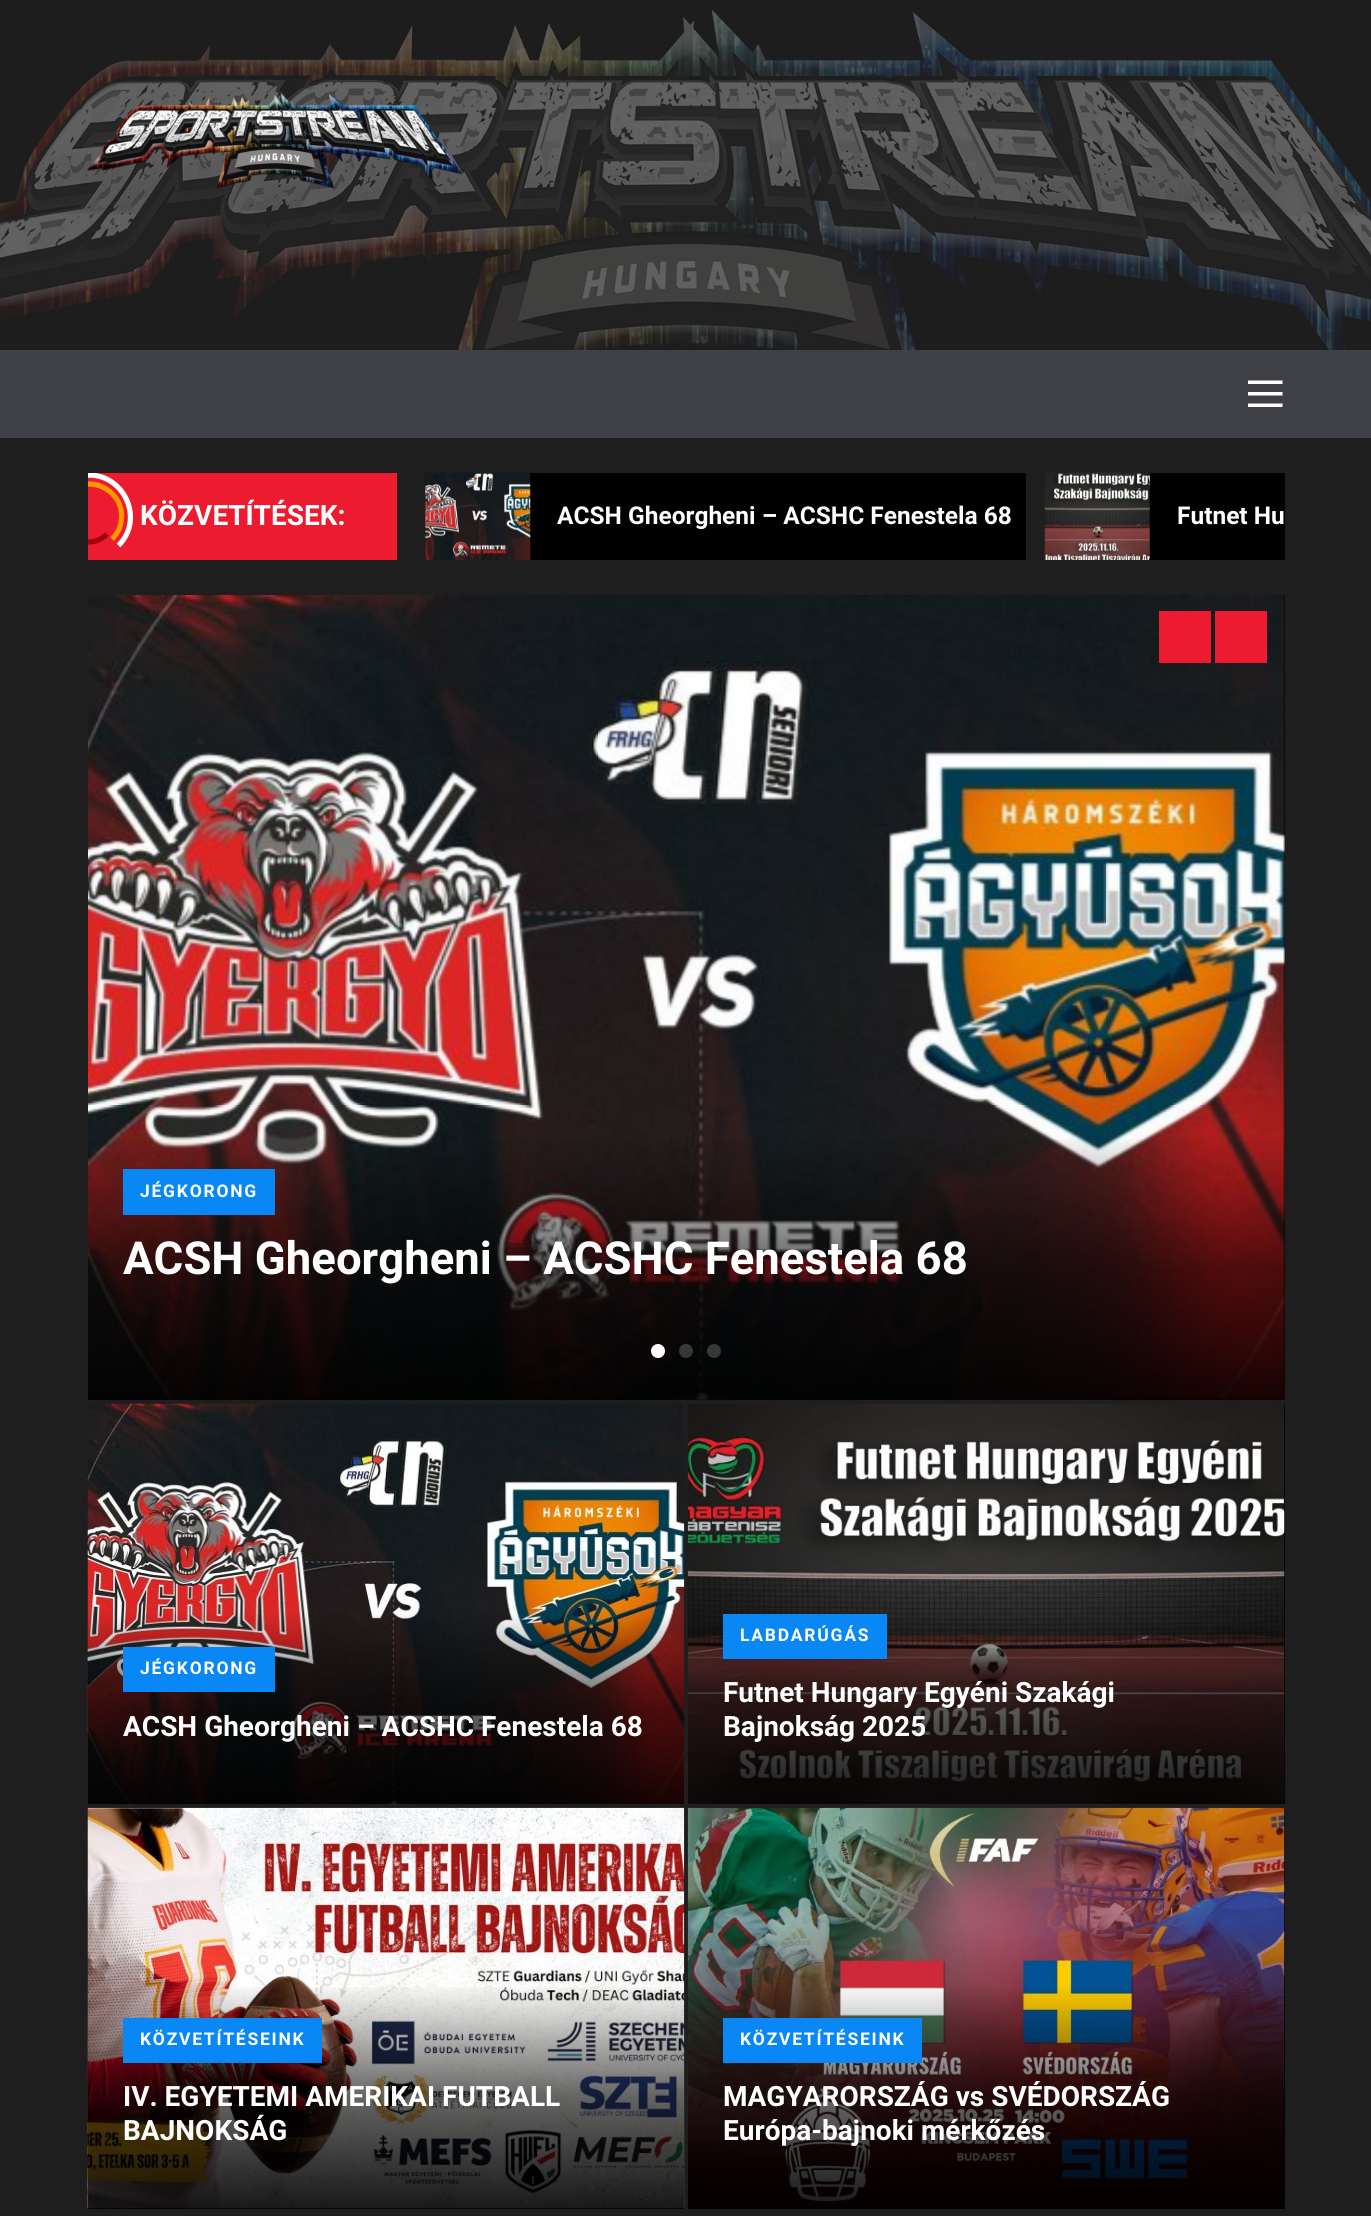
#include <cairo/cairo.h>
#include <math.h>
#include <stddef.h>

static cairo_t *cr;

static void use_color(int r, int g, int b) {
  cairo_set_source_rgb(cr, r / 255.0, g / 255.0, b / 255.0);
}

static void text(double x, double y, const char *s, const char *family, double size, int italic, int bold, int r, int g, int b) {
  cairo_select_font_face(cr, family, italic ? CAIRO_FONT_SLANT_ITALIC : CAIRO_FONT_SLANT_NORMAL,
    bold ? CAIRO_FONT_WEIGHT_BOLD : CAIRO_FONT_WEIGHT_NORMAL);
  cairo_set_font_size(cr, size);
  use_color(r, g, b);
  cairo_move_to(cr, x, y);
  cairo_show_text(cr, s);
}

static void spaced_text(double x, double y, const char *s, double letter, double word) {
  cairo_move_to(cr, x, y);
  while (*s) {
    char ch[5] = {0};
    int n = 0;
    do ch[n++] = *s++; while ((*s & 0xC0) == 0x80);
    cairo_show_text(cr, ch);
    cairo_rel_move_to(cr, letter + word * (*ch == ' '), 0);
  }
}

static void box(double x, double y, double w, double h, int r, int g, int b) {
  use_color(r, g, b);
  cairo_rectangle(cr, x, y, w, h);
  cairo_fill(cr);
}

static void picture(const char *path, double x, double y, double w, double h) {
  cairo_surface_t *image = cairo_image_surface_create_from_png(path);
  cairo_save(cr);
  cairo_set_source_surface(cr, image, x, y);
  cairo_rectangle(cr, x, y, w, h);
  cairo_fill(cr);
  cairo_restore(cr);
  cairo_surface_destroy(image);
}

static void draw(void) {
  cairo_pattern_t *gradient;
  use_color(30, 30, 30);
  cairo_paint(cr);
  picture("img_01.png", 0, 0, 1371, 350);
  picture("img_02.png", 87, 93, 375, 96);
  box(0, 350, 1371, 88, 63, 65, 70);
  use_color(255, 255, 255);
  cairo_new_path(cr);
  cairo_move_to(cr, 1248, 380.5);
  cairo_line_to(cr, 1248, 384);
  cairo_line_to(cr, 1282.5, 384);
  cairo_line_to(cr, 1282.5, 380.5);
  cairo_close_path(cr);
  cairo_move_to(cr, 1248, 395.5);
  cairo_line_to(cr, 1282.5, 395.5);
  cairo_line_to(cr, 1282.5, 392);
  cairo_line_to(cr, 1248, 392);
  cairo_close_path(cr);
  cairo_move_to(cr, 1248, 407);
  cairo_line_to(cr, 1282.5, 407);
  cairo_line_to(cr, 1282.5, 403.5);
  cairo_line_to(cr, 1248, 403.5);
  cairo_close_path(cr);
  cairo_fill(cr);
  box(88, 473, 309, 87, 237, 27, 47);
  cairo_save(cr);
  cairo_rectangle(cr, 88, 473, 309, 87);
  cairo_clip(cr);
  cairo_new_path(cr);
  cairo_move_to(cr, 60, 487);
  cairo_curve_to(cr, 66, 481.5, 73.5, 477.5, 81, 476);
  cairo_curve_to(cr, 120.5, 468, 147, 517, 118.5, 545.5);
  use_color(255, 255, 255);
  cairo_set_line_width(cr, 5.2);
  cairo_stroke(cr);
  cairo_new_path(cr);
  cairo_move_to(cr, 107, 534);
  cairo_curve_to(cr, 83.5, 558, 47.5, 522, 71.5, 498.5);
  use_color(162, 2, 15);
  cairo_stroke(cr);
  cairo_new_path(cr);
  cairo_move_to(cr, 66.5, 493.5);
  cairo_curve_to(cr, 89, 471, 127, 491.5, 121, 522.5);
  cairo_curve_to(cr, 120, 529, 116.5, 534.5, 112, 539);
  use_color(255, 152, 0);
  cairo_stroke(cr);
  cairo_restore(cr);
  box(425, 473, 601, 87, 0, 0, 0);
  picture("img_03.png", 425, 472, 106, 88);
  box(1149, 473, 136, 87, 0, 0, 0);
  picture("img_04.png", 1044, 472, 106, 88);
  box(88, 595, 1197, 805, 0, 0, 0);
  picture("img_05.png", 88, 595, 1197, 805);
  box(1159, 611, 52, 52, 237, 27, 47);
  box(1215, 611, 52, 52, 237, 27, 47);
  gradient = cairo_pattern_create_linear(686, 1134, 686, 1400);
  cairo_pattern_add_color_stop_rgba(gradient, 0, 0, 0, 0, 0);
  cairo_pattern_add_color_stop_rgba(gradient, 0.5, 0, 0, 0, 0.6);
  cairo_pattern_add_color_stop_rgba(gradient, 1, 0, 0, 0, 0.9);
  cairo_set_source(cr, gradient);
  cairo_pattern_destroy(gradient);
  cairo_rectangle(cr, 88, 1139, 1197, 261);
  cairo_fill(cr);
  use_color(255, 255, 255);
  cairo_arc(cr, 658, 1351, 7, 0, 2 * M_PI);
  cairo_fill(cr);
  cairo_set_source_rgba(cr, 1, 1, 1, 0.2);
  cairo_arc(cr, 686, 1351, 7, 0, 2 * M_PI);
  cairo_fill(cr);
  use_color(54, 55, 56);
  cairo_arc(cr, 714, 1351, 7, 0, 2 * M_PI);
  cairo_fill(cr);
  box(123, 1169, 152, 46, 9, 135, 245);
  picture("img_06.png", 87, 1403, 598, 402);
  box(123, 1647, 152, 45, 9, 135, 245);
  box(1284, 1404, 1, 400, 0, 0, 0);
  picture("img_07.png", 687, 1404, 598, 401);
  gradient = cairo_pattern_create_linear(986, 1579, 986, 1804);
  cairo_pattern_add_color_stop_rgba(gradient, 0, 0, 0, 0, 0);
  cairo_pattern_add_color_stop_rgba(gradient, 0.5, 0, 0, 0, 0.6);
  cairo_pattern_add_color_stop_rgba(gradient, 1, 0, 0, 0, 0.9);
  cairo_set_source(cr, gradient);
  cairo_pattern_destroy(gradient);
  cairo_rectangle(cr, 688, 1588, 597, 216);
  cairo_fill(cr);
  box(723, 1614, 164, 45, 9, 135, 245);
  box(88, 2208, 596, 1, 0, 0, 0);
  picture("img_08.png", 87, 1807, 598, 402);
  gradient = cairo_pattern_create_linear(386, 1983, 386, 2209);
  cairo_pattern_add_color_stop_rgba(gradient, 0, 0, 0, 0, 0);
  cairo_pattern_add_color_stop_rgba(gradient, 0.5, 0, 0, 0, 0.6);
  cairo_pattern_add_color_stop_rgba(gradient, 1, 0, 0, 0, 0.9);
  cairo_set_source(cr, gradient);
  cairo_pattern_destroy(gradient);
  cairo_rectangle(cr, 88, 1987, 596, 222);
  cairo_fill(cr);
  box(123, 2018, 199, 45, 9, 135, 245);
  box(688, 1808, 597, 401, 0, 0, 0);
  picture("img_09.png", 687, 1807, 598, 402);
  gradient = cairo_pattern_create_linear(986, 1983, 986, 2209);
  cairo_pattern_add_color_stop_rgba(gradient, 0, 0, 0, 0, 0);
  cairo_pattern_add_color_stop_rgba(gradient, 0.5, 0, 0, 0, 0.6);
  cairo_pattern_add_color_stop_rgba(gradient, 1, 0, 0, 0, 0.9);
  cairo_set_source(cr, gradient);
  cairo_pattern_destroy(gradient);
  cairo_rectangle(cr, 688, 1987, 597, 222);
  cairo_fill(cr);
  box(723, 2018, 199, 45, 9, 135, 245);
  text(140, 525, "KÖZVETÍTÉSEK:", "Roboto", 28, 0, 1, 255, 255, 255);
  text(557, 524, "ACSH Gheorgheni – ACSHC Fenestela 68", "Roboto", 24.5, 0, 1, 255, 255, 255);
  text(1177, 524, "Futnet Hu", "Roboto", 24.5, 0, 1, 255, 255, 255);
  cairo_set_font_size(cr, 17.5);
  spaced_text(140, 1197, "JÉGKORONG", 1.75, 0);
  text(123, 1274, "ACSH Gheorgheni – ACSHC Fenestela 68", "Roboto", 45.5, 0, 1, 255, 255, 255);
  cairo_set_font_size(cr, 17.5);
  spaced_text(140, 1674, "JÉGKORONG", 1.75, 0);
  text(123, 1736, "ACSH Gheorgheni – ACSHC Fenestela 68", "Roboto", 28, 0, 1, 255, 255, 255);
  cairo_set_font_size(cr, 17.5);
  spaced_text(740, 1641, "LABDARÚGÁS", 1.75, 0);
  text(723, 1702, "Futnet Hungary Egyéni Szakági", "Roboto", 28, 0, 1, 255, 255, 255);
  text(723, 1736, "Bajnokság 2025", "Roboto", 28, 0, 1, 255, 255, 255);
  cairo_set_font_size(cr, 17.5);
  spaced_text(140, 2045, "KÖZVETÍTÉSEINK", 1.75, 0);
  text(123, 2106, "IV. EGYETEMI AMERIKAI FUTBALL", "Roboto", 28, 0, 1, 255, 255, 255);
  text(123, 2140, "BAJNOKSÁG", "Roboto", 28, 0, 1, 255, 255, 255);
  cairo_set_font_size(cr, 17.5);
  spaced_text(740, 2045, "KÖZVETÍTÉSEINK", 1.75, 0);
  cairo_save(cr);
  cairo_rectangle(cr, 723, 2081, 527, 66);
  cairo_clip(cr);
  text(723, 2106, "MAGYARORSZÁG vs SVÉDORSZÁG", "Roboto", 28, 0, 1, 255, 255, 255);
  cairo_restore(cr);
  text(723, 2140, "Európa-bajnoki mérkőzés", "Roboto", 28, 0, 1, 255, 255, 255);
}

int main(void) {
  cairo_surface_t *surface = cairo_image_surface_create(CAIRO_FORMAT_RGB24, 1371, 2216);
  cr = cairo_create(surface);
  cairo_font_options_t *options = cairo_font_options_create();
  cairo_font_options_set_hint_metrics(options, CAIRO_HINT_METRICS_OFF);
  cairo_font_options_set_hint_style(options, CAIRO_HINT_STYLE_NONE);
  cairo_set_font_options(cr, options);
  cairo_set_miter_limit(cr, 4);
  draw();
  cairo_surface_write_to_png(surface, "out.png");
  cairo_font_options_destroy(options);
  cairo_destroy(cr);
  cairo_surface_destroy(surface);
  return 0;
}
